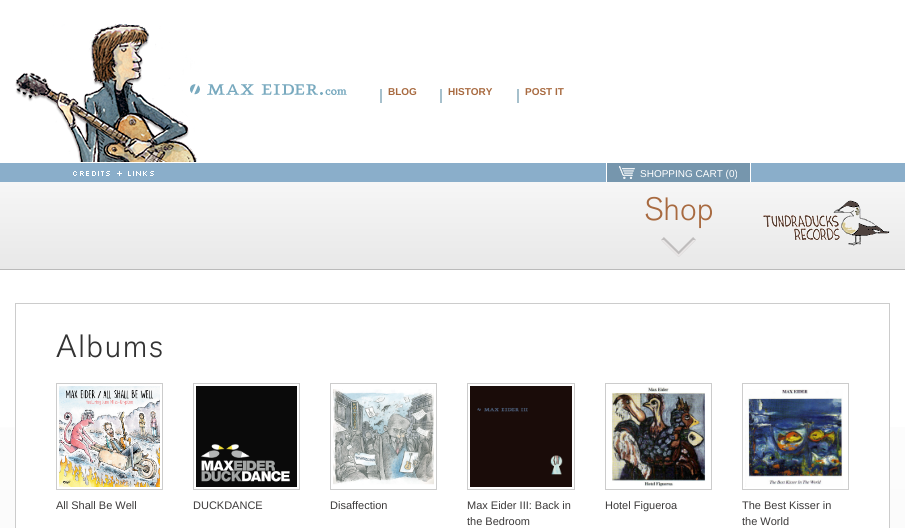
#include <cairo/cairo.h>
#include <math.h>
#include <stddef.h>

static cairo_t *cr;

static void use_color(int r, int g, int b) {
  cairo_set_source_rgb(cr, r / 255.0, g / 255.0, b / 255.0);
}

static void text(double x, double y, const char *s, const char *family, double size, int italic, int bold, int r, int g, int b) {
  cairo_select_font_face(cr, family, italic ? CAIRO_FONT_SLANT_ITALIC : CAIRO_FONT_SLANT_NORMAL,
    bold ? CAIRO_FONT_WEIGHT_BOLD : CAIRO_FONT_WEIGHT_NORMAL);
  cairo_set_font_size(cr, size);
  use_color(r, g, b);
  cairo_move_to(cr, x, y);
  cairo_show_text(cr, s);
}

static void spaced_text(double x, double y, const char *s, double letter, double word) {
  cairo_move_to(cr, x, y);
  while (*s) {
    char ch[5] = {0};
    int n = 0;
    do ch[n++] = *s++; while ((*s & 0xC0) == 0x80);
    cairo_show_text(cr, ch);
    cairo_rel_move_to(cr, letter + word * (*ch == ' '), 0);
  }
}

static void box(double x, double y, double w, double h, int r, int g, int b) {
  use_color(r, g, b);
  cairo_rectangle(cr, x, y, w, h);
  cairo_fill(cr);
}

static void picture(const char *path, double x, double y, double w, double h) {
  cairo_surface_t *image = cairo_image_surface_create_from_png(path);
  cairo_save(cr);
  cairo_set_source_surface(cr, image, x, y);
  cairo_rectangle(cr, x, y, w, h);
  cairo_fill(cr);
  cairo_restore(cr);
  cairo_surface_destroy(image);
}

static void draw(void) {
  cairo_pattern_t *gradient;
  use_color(255, 255, 255);
  cairo_paint(cr);
  picture("img_01.png", 15, 24, 182, 138);
  picture("img_02.png", 190, 84, 157, 11);
  box(380, 89, 2, 14, 166, 192, 204);
  box(440, 89, 2, 14, 166, 192, 204);
  box(517, 89, 2, 14, 166, 192, 204);
  box(0, 163, 905, 19, 138, 174, 202);
  picture("img_03.png", 73, 171, 81, 5);
  box(607, 163, 143, 19, 118, 150, 173);
  box(750, 163, 1, 19, 255, 255, 255);
  box(606, 163, 1, 19, 255, 255, 255);
  picture("img_04.png", 619, 166, 16, 13);
  gradient = cairo_pattern_create_linear(453, 182, 453, 269);
  cairo_pattern_add_color_stop_rgba(gradient, 0, 0.965, 0.965, 0.965, 1);
  cairo_pattern_add_color_stop_rgba(gradient, 1, 0.91, 0.91, 0.91, 1);
  cairo_set_source(cr, gradient);
  cairo_pattern_destroy(gradient);
  cairo_rectangle(cr, 0, 182, 905, 87);
  cairo_fill(cr);
  box(0, 269, 905, 1, 186, 186, 186);
  picture("img_05.png", 661, 237, 35, 20);
  picture("img_06.png", 763, 200, 127, 46);
  gradient = cairo_pattern_create_linear(452, 270, 453, 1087);
  cairo_pattern_add_color_stop_rgba(gradient, 0, 1, 1, 1, 1);
  cairo_pattern_add_color_stop_rgba(gradient, 1, 0.949, 0.949, 0.949, 1);
  cairo_set_source(cr, gradient);
  cairo_pattern_destroy(gradient);
  cairo_rectangle(cr, 0, 427, 905, 101);
  cairo_fill(cr);
  box(16, 427, 873, 101, 255, 255, 255);
  cairo_rectangle(cr, 15.5, 303.5, 874, 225);
  use_color(204, 204, 204);
  cairo_set_line_width(cr, 1);
  cairo_stroke(cr);
  cairo_rectangle(cr, 56.5, 383.5, 106, 106);
  cairo_stroke(cr);
  picture("img_07.png", 59, 386, 101, 101);
  cairo_rectangle(cr, 193.5, 383.5, 106, 106);
  cairo_stroke(cr);
  picture("img_08.png", 196, 386, 101, 101);
  cairo_rectangle(cr, 330.5, 383.5, 106, 106);
  cairo_stroke(cr);
  picture("img_09.png", 333, 389, 101, 96);
  cairo_rectangle(cr, 467.5, 383.5, 107, 106);
  cairo_stroke(cr);
  picture("img_10.png", 470, 386, 102, 101);
  cairo_rectangle(cr, 605.5, 383.5, 106, 106);
  cairo_stroke(cr);
  picture("img_11.png", 612, 387, 94, 100);
  cairo_rectangle(cr, 742.5, 383.5, 106, 106);
  cairo_stroke(cr);
  picture("img_12.png", 745, 389, 98, 98);
  text(388, 95, "BLOG", "Liberation Sans", 10, 0, 1, 168, 106, 64);
  text(448, 95, "HISTORY", "Liberation Sans", 10, 0, 1, 168, 106, 64);
  text(525, 95, "POST IT", "Liberation Sans", 10, 0, 1, 168, 106, 64);
  text(640, 177, "SHOPPING CART (0)", "Liberation Sans", 10, 0, 0, 255, 255, 255);
  text(644, 220, "Shop", "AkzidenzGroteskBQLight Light", 32, 0, 0, 168, 106, 64);
  use_color(51, 51, 51);
  spaced_text(56, 357, "Albums", 1.5, 0);
  text(56, 509, "All Shall Be Well", "Liberation Sans", 11, 0, 0, 59, 57, 57);
  text(193, 509, "DUCKDANCE", "Liberation Sans", 11, 0, 0, 59, 57, 57);
  text(330, 509, "Disaffection", "Liberation Sans", 11, 0, 0, 59, 57, 57);
  text(467, 509, "Max Eider III: Back in", "Liberation Sans", 11, 0, 0, 59, 57, 57);
  text(467, 525, "the Bedroom", "Liberation Sans", 11, 0, 0, 59, 57, 57);
  text(605, 509, "Hotel Figueroa", "Liberation Sans", 11, 0, 0, 59, 57, 57);
  text(742, 509, "The Best Kisser in", "Liberation Sans", 11, 0, 0, 59, 57, 57);
  text(742, 525, "the World", "Liberation Sans", 11, 0, 0, 59, 57, 57);
}

int main(void) {
  cairo_surface_t *surface = cairo_image_surface_create(CAIRO_FORMAT_RGB24, 905, 528);
  cr = cairo_create(surface);
  cairo_font_options_t *options = cairo_font_options_create();
  cairo_font_options_set_hint_metrics(options, CAIRO_HINT_METRICS_OFF);
  cairo_font_options_set_hint_style(options, CAIRO_HINT_STYLE_NONE);
  cairo_set_font_options(cr, options);
  cairo_set_miter_limit(cr, 4);
  draw();
  cairo_surface_write_to_png(surface, "out.png");
  cairo_font_options_destroy(options);
  cairo_destroy(cr);
  cairo_surface_destroy(surface);
  return 0;
}
